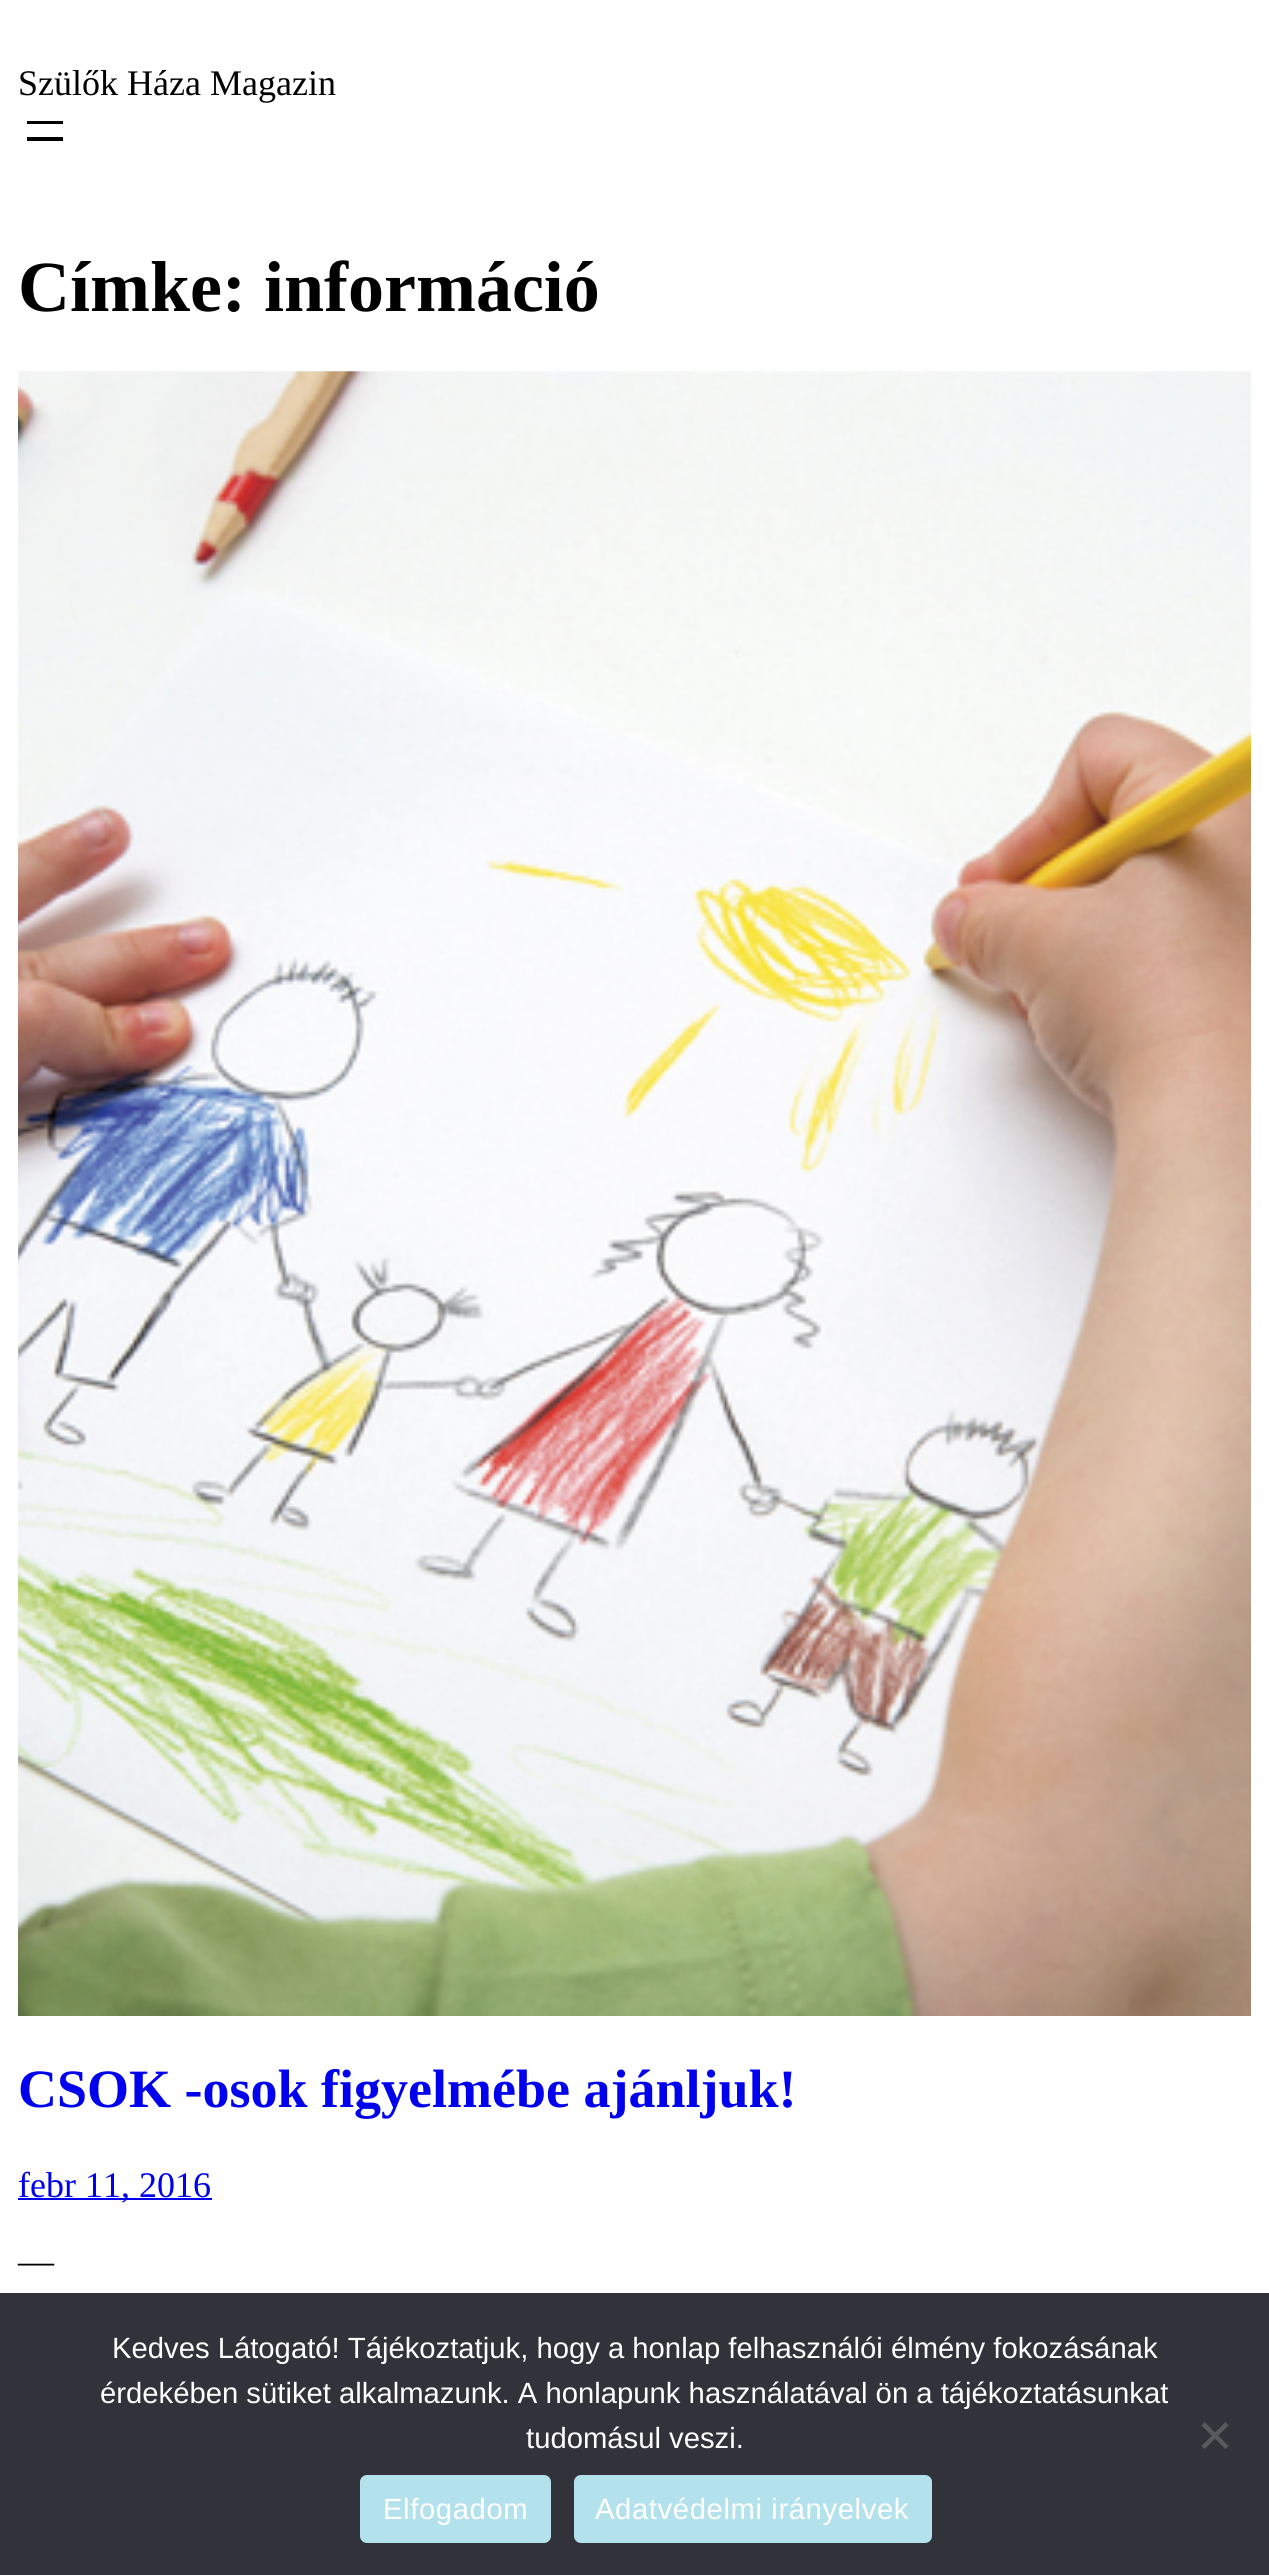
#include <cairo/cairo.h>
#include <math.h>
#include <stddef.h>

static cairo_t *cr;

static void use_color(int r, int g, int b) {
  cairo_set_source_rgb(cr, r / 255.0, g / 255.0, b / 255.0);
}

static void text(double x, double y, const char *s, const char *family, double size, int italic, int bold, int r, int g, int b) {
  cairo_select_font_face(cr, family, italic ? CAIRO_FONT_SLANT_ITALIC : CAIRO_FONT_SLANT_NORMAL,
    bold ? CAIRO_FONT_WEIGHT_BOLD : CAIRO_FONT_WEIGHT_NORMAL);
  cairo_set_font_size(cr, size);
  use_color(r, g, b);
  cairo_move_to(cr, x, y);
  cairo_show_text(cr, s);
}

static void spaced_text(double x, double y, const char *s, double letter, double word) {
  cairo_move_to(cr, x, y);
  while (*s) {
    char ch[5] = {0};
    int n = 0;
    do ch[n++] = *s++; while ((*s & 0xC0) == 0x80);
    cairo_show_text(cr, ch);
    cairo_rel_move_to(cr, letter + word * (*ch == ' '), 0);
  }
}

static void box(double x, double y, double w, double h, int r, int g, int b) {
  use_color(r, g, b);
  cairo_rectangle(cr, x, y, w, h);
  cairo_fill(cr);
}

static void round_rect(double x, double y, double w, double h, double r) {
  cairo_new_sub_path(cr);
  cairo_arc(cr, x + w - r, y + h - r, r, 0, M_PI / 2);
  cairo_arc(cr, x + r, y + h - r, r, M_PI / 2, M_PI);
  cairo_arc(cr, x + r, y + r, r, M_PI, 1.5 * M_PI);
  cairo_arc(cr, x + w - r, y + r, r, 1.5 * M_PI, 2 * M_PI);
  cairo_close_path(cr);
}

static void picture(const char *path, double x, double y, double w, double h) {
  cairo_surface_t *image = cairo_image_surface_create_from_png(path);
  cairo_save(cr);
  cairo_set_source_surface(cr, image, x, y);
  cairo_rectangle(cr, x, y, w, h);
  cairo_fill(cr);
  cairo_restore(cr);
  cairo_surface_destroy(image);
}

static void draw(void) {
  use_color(255, 255, 255);
  cairo_paint(cr);
  box(27, 121, 36, 3, 0, 0, 0);
  box(27, 137, 36, 4, 0, 0, 0);
  picture("img_01.png", 18, 371, 1233, 1645);
  box(18, 2198, 194, 2, 0, 0, 238);
  box(0, 2293, 1269, 282, 50, 50, 58);
  use_color(89, 89, 93);
  cairo_new_path(cr);
  cairo_move_to(cr, 1225.5, 2422);
  cairo_line_to(cr, 1228.5, 2425.5);
  cairo_line_to(cr, 1204.5, 2449);
  cairo_line_to(cr, 1201.5, 2446);
  cairo_close_path(cr);
  cairo_fill(cr);
  cairo_new_path(cr);
  cairo_move_to(cr, 1201.5, 2425.5);
  cairo_line_to(cr, 1204.5, 2422);
  cairo_line_to(cr, 1228.5, 2446);
  cairo_line_to(cr, 1225.5, 2449);
  cairo_close_path(cr);
  cairo_fill(cr);
  use_color(180, 226, 236);
  round_rect(360, 2475, 191, 68, 7);
  cairo_fill(cr);
  round_rect(574, 2475, 358, 68, 7);
  cairo_fill(cr);
  text(18, 95, "Szülők Háza Magazin", "Liberation Serif", 36, 0, 0, 0, 0, 0);
  text(18, 311, "Címke: információ", "Liberation Serif", 72, 0, 1, 0, 0, 0);
  text(18, 2107, "CSOK -osok figyelmébe ajánljuk!", "Liberation Serif", 54, 0, 1, 0, 0, 238);
  text(18, 2197, "febr 11, 2016", "Liberation Serif", 36, 0, 0, 0, 0, 238);
  text(18, 2273, "—", "Liberation Serif", 36, 0, 0, 0, 0, 0);
  text(112, 2358, "Kedves Látogató! Tájékoztatjuk, hogy a honlap felhasználói élmény fokozásának", "Liberation Sans", 29.25, 0, 0, 255, 255, 255);
  text(100, 2403, "érdekében sütiket alkalmazunk. A honlapunk használatával ön a tájékoztatásunkat", "Liberation Sans", 29.25, 0, 0, 255, 255, 255);
  text(526, 2448, "tudomásul veszi.", "Liberation Sans", 29.25, 0, 0, 255, 255, 255);
  spaced_text(383, 2519, "Elfogadom", 0.6, 0);
  spaced_text(595, 2519, "Adatvédelmi irányelvek", 0.6, 0);
}

int main(void) {
  cairo_surface_t *surface = cairo_image_surface_create(CAIRO_FORMAT_RGB24, 1269, 2575);
  cr = cairo_create(surface);
  cairo_font_options_t *options = cairo_font_options_create();
  cairo_font_options_set_hint_metrics(options, CAIRO_HINT_METRICS_OFF);
  cairo_font_options_set_hint_style(options, CAIRO_HINT_STYLE_NONE);
  cairo_set_font_options(cr, options);
  cairo_set_miter_limit(cr, 4);
  draw();
  cairo_surface_write_to_png(surface, "out.png");
  cairo_font_options_destroy(options);
  cairo_destroy(cr);
  cairo_surface_destroy(surface);
  return 0;
}
